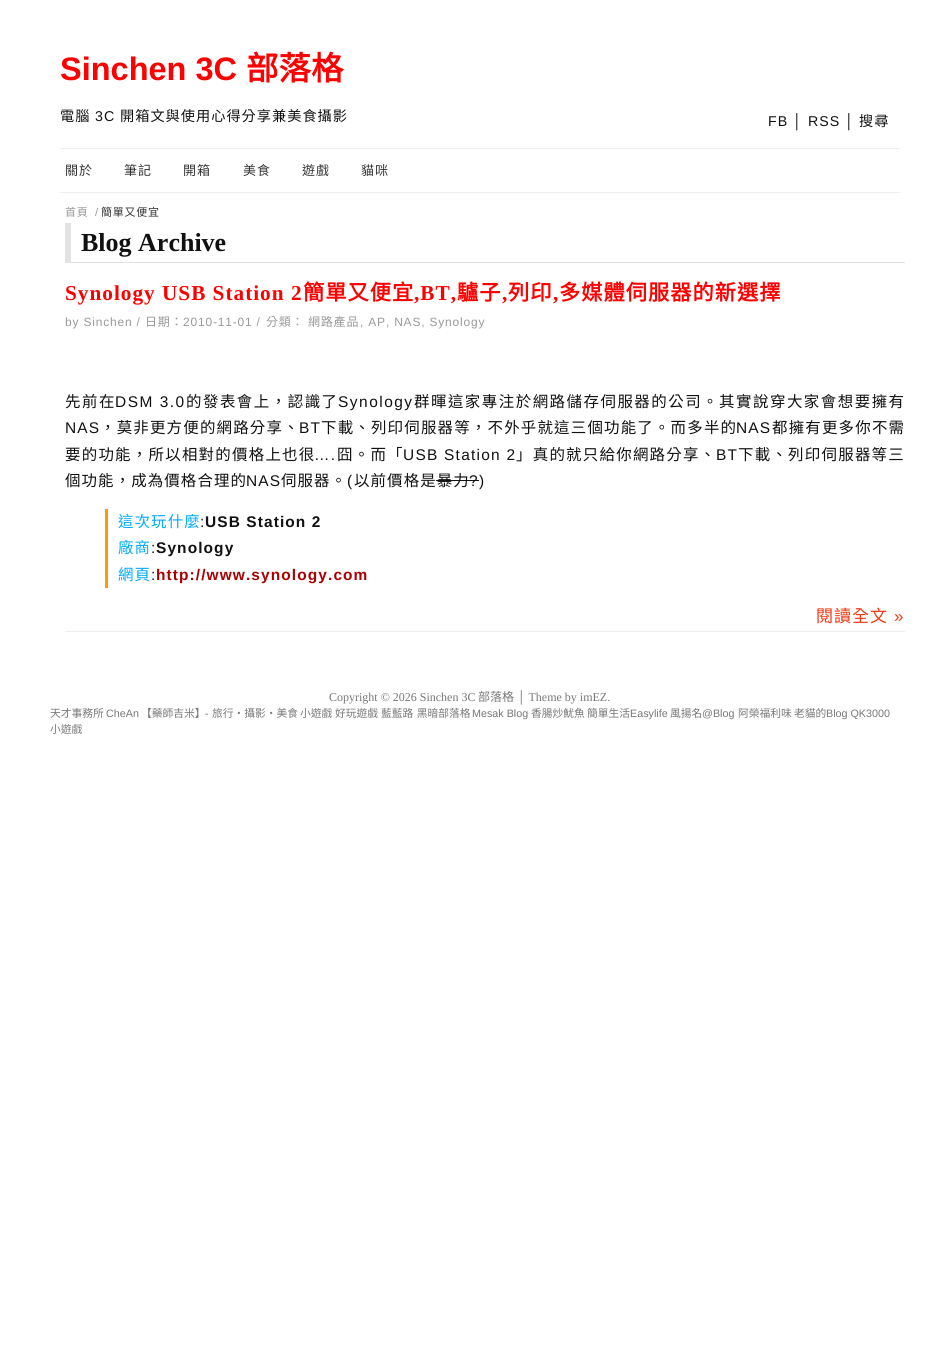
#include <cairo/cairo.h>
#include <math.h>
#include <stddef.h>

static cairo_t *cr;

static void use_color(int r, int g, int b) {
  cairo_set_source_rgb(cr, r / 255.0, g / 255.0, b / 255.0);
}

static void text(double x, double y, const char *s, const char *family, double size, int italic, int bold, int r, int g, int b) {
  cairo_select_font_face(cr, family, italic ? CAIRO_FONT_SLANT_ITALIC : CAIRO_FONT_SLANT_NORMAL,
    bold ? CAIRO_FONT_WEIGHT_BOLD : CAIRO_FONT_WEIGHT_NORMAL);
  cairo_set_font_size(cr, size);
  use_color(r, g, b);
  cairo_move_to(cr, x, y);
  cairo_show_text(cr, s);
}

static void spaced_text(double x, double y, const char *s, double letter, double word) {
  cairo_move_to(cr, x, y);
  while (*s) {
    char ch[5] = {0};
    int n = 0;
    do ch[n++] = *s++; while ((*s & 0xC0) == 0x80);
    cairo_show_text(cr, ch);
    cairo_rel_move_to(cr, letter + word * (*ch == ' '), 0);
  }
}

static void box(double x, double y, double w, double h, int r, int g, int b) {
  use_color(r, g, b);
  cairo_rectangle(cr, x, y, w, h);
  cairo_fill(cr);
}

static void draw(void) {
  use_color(255, 255, 255);
  cairo_paint(cr);
  box(60, 148, 840, 1, 238, 238, 238);
  box(60, 192, 840, 1, 238, 238, 238);
  box(65, 262, 840, 1, 227, 227, 227);
  box(65, 223, 6, 40, 227, 227, 227);
  box(436, 480, 43, 1, 17, 17, 17);
  box(105, 509, 3, 79, 255, 153, 0);
  box(65, 631, 840, 1, 238, 238, 238);
  text(60, 80, "Sinchen 3C", "Liberation Sans", 32.5, 0, 1, 255, 0, 0);
  text(246, 80, "部落格", "Noto Sans CJK TC", 32.5, 0, 1, 255, 0, 0);
  cairo_select_font_face(cr, "Noto Sans CJK TC", CAIRO_FONT_SLANT_NORMAL, CAIRO_FONT_WEIGHT_NORMAL);
  cairo_set_font_size(cr, 14.2);
  use_color(17, 17, 17);
  spaced_text(60, 121, "電腦", 1, 0);
  cairo_select_font_face(cr, "Liberation Sans", CAIRO_FONT_SLANT_NORMAL, CAIRO_FONT_WEIGHT_NORMAL);
  spaced_text(95, 121, "3C", 1, 0);
  cairo_select_font_face(cr, "Noto Sans CJK TC", CAIRO_FONT_SLANT_NORMAL, CAIRO_FONT_WEIGHT_NORMAL);
  spaced_text(120, 121, "開箱文與使用心得分享兼美食攝影", 1, 0);
  cairo_select_font_face(cr, "Liberation Sans", CAIRO_FONT_SLANT_NORMAL, CAIRO_FONT_WEIGHT_NORMAL);
  spaced_text(768, 126, "FB │ RSS │", 1, 0);
  cairo_select_font_face(cr, "Noto Sans CJK TC", CAIRO_FONT_SLANT_NORMAL, CAIRO_FONT_WEIGHT_NORMAL);
  spaced_text(859, 126, "搜尋", 1, 0);
  cairo_set_font_size(cr, 13);
  use_color(51, 51, 51);
  spaced_text(65, 175, "關於", 1, 0);
  spaced_text(124, 175, "筆記", 1, 0);
  spaced_text(183, 175, "開箱", 1, 0);
  spaced_text(243, 175, "美食", 1, 0);
  spaced_text(302, 175, "遊戲", 1, 0);
  spaced_text(361, 175, "貓咪", 1, 0);
  cairo_set_font_size(cr, 11);
  use_color(153, 153, 153);
  spaced_text(65, 216, "首頁", 0.75, 0);
  cairo_select_font_face(cr, "Liberation Sans", CAIRO_FONT_SLANT_NORMAL, CAIRO_FONT_WEIGHT_NORMAL);
  spaced_text(95, 216, "/", 0.75, 0);
  cairo_select_font_face(cr, "Noto Sans CJK TC", CAIRO_FONT_SLANT_NORMAL, CAIRO_FONT_WEIGHT_NORMAL);
  use_color(51, 51, 51);
  spaced_text(101, 216, "簡單又便宜", 0.75, 0);
  text(81, 251, "Blog Archive", "Liberation Serif", 26, 0, 1, 17, 17, 17);
  cairo_set_font_size(cr, 21.25);
  use_color(255, 0, 0);
  spaced_text(65, 300, "Synology USB Station 2", 1, 0);
  cairo_select_font_face(cr, "Noto Sans CJK TC", CAIRO_FONT_SLANT_NORMAL, CAIRO_FONT_WEIGHT_BOLD);
  spaced_text(303, 300, "簡單又便宜", 1, 0);
  cairo_select_font_face(cr, "Liberation Serif", CAIRO_FONT_SLANT_NORMAL, CAIRO_FONT_WEIGHT_BOLD);
  spaced_text(414, 300, ",BT,", 1, 0);
  cairo_select_font_face(cr, "Noto Sans CJK TC", CAIRO_FONT_SLANT_NORMAL, CAIRO_FONT_WEIGHT_BOLD);
  spaced_text(457, 300, "驢子", 1, 0);
  cairo_select_font_face(cr, "Liberation Serif", CAIRO_FONT_SLANT_NORMAL, CAIRO_FONT_WEIGHT_BOLD);
  spaced_text(502, 300, ",", 1, 0);
  cairo_select_font_face(cr, "Noto Sans CJK TC", CAIRO_FONT_SLANT_NORMAL, CAIRO_FONT_WEIGHT_BOLD);
  spaced_text(508, 300, "列印", 1, 0);
  cairo_select_font_face(cr, "Liberation Serif", CAIRO_FONT_SLANT_NORMAL, CAIRO_FONT_WEIGHT_BOLD);
  spaced_text(553, 300, ",", 1, 0);
  cairo_select_font_face(cr, "Noto Sans CJK TC", CAIRO_FONT_SLANT_NORMAL, CAIRO_FONT_WEIGHT_BOLD);
  spaced_text(559, 300, "多媒體伺服器的新選擇", 1, 0);
  cairo_select_font_face(cr, "Liberation Sans", CAIRO_FONT_SLANT_NORMAL, CAIRO_FONT_WEIGHT_NORMAL);
  cairo_set_font_size(cr, 12);
  use_color(153, 153, 153);
  spaced_text(65, 326, "by Sinchen /", 0.8, 0);
  cairo_select_font_face(cr, "Noto Sans CJK TC", CAIRO_FONT_SLANT_NORMAL, CAIRO_FONT_WEIGHT_NORMAL);
  spaced_text(145, 326, "日期：", 0.8, 0);
  cairo_select_font_face(cr, "Liberation Sans", CAIRO_FONT_SLANT_NORMAL, CAIRO_FONT_WEIGHT_NORMAL);
  spaced_text(183, 326, "2010-11-01 /", 0.8, 0);
  cairo_select_font_face(cr, "Noto Sans CJK TC", CAIRO_FONT_SLANT_NORMAL, CAIRO_FONT_WEIGHT_NORMAL);
  spaced_text(266, 326, "分類：", 0.8, 0);
  spaced_text(308, 326, "網路產品", 0.8, 0);
  cairo_select_font_face(cr, "Liberation Sans", CAIRO_FONT_SLANT_NORMAL, CAIRO_FONT_WEIGHT_NORMAL);
  spaced_text(360, 326, ", AP, NAS, Synology", 0.8, 0);
  cairo_select_font_face(cr, "Noto Sans CJK TC", CAIRO_FONT_SLANT_NORMAL, CAIRO_FONT_WEIGHT_NORMAL);
  cairo_set_font_size(cr, 15.45);
  use_color(17, 17, 17);
  spaced_text(65, 407, "先前在", 1.5, 0);
  cairo_select_font_face(cr, "Liberation Sans", CAIRO_FONT_SLANT_NORMAL, CAIRO_FONT_WEIGHT_NORMAL);
  spaced_text(115, 407, "DSM 3.0", 1.5, 0);
  cairo_select_font_face(cr, "Noto Sans CJK TC", CAIRO_FONT_SLANT_NORMAL, CAIRO_FONT_WEIGHT_NORMAL);
  spaced_text(186, 407, "的發表會上，認識了", 1.5, 0);
  cairo_select_font_face(cr, "Liberation Sans", CAIRO_FONT_SLANT_NORMAL, CAIRO_FONT_WEIGHT_NORMAL);
  spaced_text(338, 407, "Synology", 1.5, 0);
  cairo_select_font_face(cr, "Noto Sans CJK TC", CAIRO_FONT_SLANT_NORMAL, CAIRO_FONT_WEIGHT_NORMAL);
  spaced_text(414, 407, "群暉這家專注於網路儲存伺服器的公司。其實說穿大家會想要擁有", 1.5, 0);
  cairo_select_font_face(cr, "Liberation Sans", CAIRO_FONT_SLANT_NORMAL, CAIRO_FONT_WEIGHT_NORMAL);
  spaced_text(65, 433, "NAS", 1.2, 0);
  cairo_select_font_face(cr, "Noto Sans CJK TC", CAIRO_FONT_SLANT_NORMAL, CAIRO_FONT_WEIGHT_NORMAL);
  spaced_text(100, 433, "，莫非更方便的網路分享、", 1.2, 0);
  cairo_select_font_face(cr, "Liberation Sans", CAIRO_FONT_SLANT_NORMAL, CAIRO_FONT_WEIGHT_NORMAL);
  spaced_text(299, 433, "BT", 1.2, 0);
  cairo_select_font_face(cr, "Noto Sans CJK TC", CAIRO_FONT_SLANT_NORMAL, CAIRO_FONT_WEIGHT_NORMAL);
  spaced_text(321, 433, "下載、列印伺服器等，不外乎就這三個功能了。而多半的", 1.2, 0);
  cairo_select_font_face(cr, "Liberation Sans", CAIRO_FONT_SLANT_NORMAL, CAIRO_FONT_WEIGHT_NORMAL);
  spaced_text(736, 433, "NAS", 1.2, 0);
  cairo_select_font_face(cr, "Noto Sans CJK TC", CAIRO_FONT_SLANT_NORMAL, CAIRO_FONT_WEIGHT_NORMAL);
  spaced_text(772, 433, "都擁有更多你不需", 1.2, 0);
  spaced_text(65, 460, "要的功能，所以相對的價格上也很", 1.25, 0);
  cairo_select_font_face(cr, "Liberation Sans", CAIRO_FONT_SLANT_NORMAL, CAIRO_FONT_WEIGHT_NORMAL);
  spaced_text(314, 460, "….", 1.25, 0);
  cairo_select_font_face(cr, "Noto Sans CJK TC", CAIRO_FONT_SLANT_NORMAL, CAIRO_FONT_WEIGHT_NORMAL);
  spaced_text(337, 460, "囧。而「", 1.25, 0);
  cairo_select_font_face(cr, "Liberation Sans", CAIRO_FONT_SLANT_NORMAL, CAIRO_FONT_WEIGHT_NORMAL);
  spaced_text(403, 460, "USB Station 2", 1.25, 0);
  cairo_select_font_face(cr, "Noto Sans CJK TC", CAIRO_FONT_SLANT_NORMAL, CAIRO_FONT_WEIGHT_NORMAL);
  spaced_text(516, 460, "」真的就只給你網路分享、", 1.25, 0);
  cairo_select_font_face(cr, "Liberation Sans", CAIRO_FONT_SLANT_NORMAL, CAIRO_FONT_WEIGHT_NORMAL);
  spaced_text(716, 460, "BT", 1.25, 0);
  cairo_select_font_face(cr, "Noto Sans CJK TC", CAIRO_FONT_SLANT_NORMAL, CAIRO_FONT_WEIGHT_NORMAL);
  spaced_text(738, 460, "下載、列印伺服器等三", 1.25, 0);
  spaced_text(65, 486, "個功能，成為價格合理的", 1.1, 0);
  cairo_select_font_face(cr, "Liberation Sans", CAIRO_FONT_SLANT_NORMAL, CAIRO_FONT_WEIGHT_NORMAL);
  spaced_text(246, 486, "NAS", 1.1, 0);
  cairo_select_font_face(cr, "Noto Sans CJK TC", CAIRO_FONT_SLANT_NORMAL, CAIRO_FONT_WEIGHT_NORMAL);
  spaced_text(281, 486, "伺服器。", 1.1, 0);
  cairo_select_font_face(cr, "Liberation Sans", CAIRO_FONT_SLANT_NORMAL, CAIRO_FONT_WEIGHT_NORMAL);
  spaced_text(347, 486, "(", 1.1, 0);
  cairo_select_font_face(cr, "Noto Sans CJK TC", CAIRO_FONT_SLANT_NORMAL, CAIRO_FONT_WEIGHT_NORMAL);
  spaced_text(354, 486, "以前價格是暴力", 1.1, 0);
  cairo_select_font_face(cr, "Liberation Sans", CAIRO_FONT_SLANT_NORMAL, CAIRO_FONT_WEIGHT_NORMAL);
  spaced_text(469, 486, "?", 1.1, 0);
  spaced_text(479, 486, ")", 1.1, 0);
  cairo_select_font_face(cr, "Noto Sans CJK TC", CAIRO_FONT_SLANT_NORMAL, CAIRO_FONT_WEIGHT_NORMAL);
  use_color(0, 170, 255);
  spaced_text(118, 527, "這次玩什麼", 1.1, 0);
  cairo_select_font_face(cr, "Liberation Sans", CAIRO_FONT_SLANT_NORMAL, CAIRO_FONT_WEIGHT_NORMAL);
  use_color(17, 17, 17);
  spaced_text(200, 527, ":", 1.1, 0);
  cairo_select_font_face(cr, "Liberation Sans", CAIRO_FONT_SLANT_NORMAL, CAIRO_FONT_WEIGHT_BOLD);
  spaced_text(205, 527, "USB Station 2", 1.1, 0);
  cairo_select_font_face(cr, "Noto Sans CJK TC", CAIRO_FONT_SLANT_NORMAL, CAIRO_FONT_WEIGHT_NORMAL);
  use_color(0, 170, 255);
  spaced_text(118, 553, "廠商", 1.1, 0);
  cairo_select_font_face(cr, "Liberation Sans", CAIRO_FONT_SLANT_NORMAL, CAIRO_FONT_WEIGHT_NORMAL);
  use_color(17, 17, 17);
  spaced_text(151, 553, ":", 1.1, 0);
  cairo_select_font_face(cr, "Liberation Sans", CAIRO_FONT_SLANT_NORMAL, CAIRO_FONT_WEIGHT_BOLD);
  spaced_text(156, 553, "Synology", 1.1, 0);
  cairo_select_font_face(cr, "Noto Sans CJK TC", CAIRO_FONT_SLANT_NORMAL, CAIRO_FONT_WEIGHT_NORMAL);
  use_color(0, 170, 255);
  spaced_text(118, 580, "網頁", 1.1, 0);
  cairo_select_font_face(cr, "Liberation Sans", CAIRO_FONT_SLANT_NORMAL, CAIRO_FONT_WEIGHT_NORMAL);
  use_color(17, 17, 17);
  spaced_text(151, 580, ":", 1.1, 0);
  cairo_select_font_face(cr, "Liberation Sans", CAIRO_FONT_SLANT_NORMAL, CAIRO_FONT_WEIGHT_BOLD);
  use_color(170, 0, 0);
  spaced_text(156, 580, "http://www.synology.com", 1.1, 0);
  cairo_select_font_face(cr, "Noto Sans CJK TC", CAIRO_FONT_SLANT_NORMAL, CAIRO_FONT_WEIGHT_NORMAL);
  cairo_set_font_size(cr, 17);
  use_color(245, 54, 15);
  spaced_text(816, 622, "閱讀全文", 1, 0);
  cairo_select_font_face(cr, "Liberation Sans", CAIRO_FONT_SLANT_NORMAL, CAIRO_FONT_WEIGHT_NORMAL);
  spaced_text(894, 622, "»", 1, 0);
  text(329, 701, "Copyright © 2026 Sinchen 3C", "Liberation Serif", 12, 0, 0, 119, 119, 119);
  text(478, 701, "部落格", "Noto Sans CJK TC", 12, 0, 0, 119, 119, 119);
  text(517, 701, "│ Theme by imEZ.", "Liberation Serif", 12, 0, 0, 119, 119, 119);
  text(50, 717, "天才事務所", "Noto Sans CJK TC", 10.75, 0, 0, 119, 119, 119);
  text(106, 717, "CheAn", "Liberation Sans", 10.75, 0, 0, 119, 119, 119);
  text(141, 717, "【藥師吉米】", "Noto Sans CJK TC", 10.75, 0, 0, 119, 119, 119);
  text(205, 717, "-", "Liberation Sans", 10.75, 0, 0, 119, 119, 119);
  text(212, 717, "旅行‧攝影‧美食", "Noto Sans CJK TC", 10.75, 0, 0, 119, 119, 119);
  text(300, 717, "小遊戲", "Noto Sans CJK TC", 10.75, 0, 0, 119, 119, 119);
  text(335, 717, "好玩遊戲", "Noto Sans CJK TC", 10.75, 0, 0, 119, 119, 119);
  spaced_text(381, 717, "藍藍路 黑暗部落格", 0, 1);
  text(472, 717, "Mesak Blog", "Liberation Sans", 10.75, 0, 0, 119, 119, 119);
  text(531, 717, "香腸炒魷魚", "Noto Sans CJK TC", 10.75, 0, 0, 119, 119, 119);
  text(587, 717, "簡單生活", "Noto Sans CJK TC", 10.75, 0, 0, 119, 119, 119);
  text(630, 717, "Easylife", "Liberation Sans", 10.75, 0, 0, 119, 119, 119);
  text(670, 717, "風揚名", "Noto Sans CJK TC", 10.75, 0, 0, 119, 119, 119);
  text(702, 717, "@Blog", "Liberation Sans", 10.75, 0, 0, 119, 119, 119);
  text(738, 717, "阿榮福利味", "Noto Sans CJK TC", 10.75, 0, 0, 119, 119, 119);
  text(794, 717, "老貓的", "Noto Sans CJK TC", 10.75, 0, 0, 119, 119, 119);
  text(826, 717, "Blog QK3000", "Liberation Sans", 10.75, 0, 0, 119, 119, 119);
  text(50, 733, "小遊戲", "Noto Sans CJK TC", 10.75, 0, 0, 119, 119, 119);
}

int main(void) {
  cairo_surface_t *surface = cairo_image_surface_create(CAIRO_FORMAT_RGB24, 939, 1359);
  cr = cairo_create(surface);
  cairo_font_options_t *options = cairo_font_options_create();
  cairo_font_options_set_hint_metrics(options, CAIRO_HINT_METRICS_OFF);
  cairo_font_options_set_hint_style(options, CAIRO_HINT_STYLE_NONE);
  cairo_set_font_options(cr, options);
  cairo_set_miter_limit(cr, 4);
  draw();
  cairo_surface_write_to_png(surface, "out.png");
  cairo_font_options_destroy(options);
  cairo_destroy(cr);
  cairo_surface_destroy(surface);
  return 0;
}
